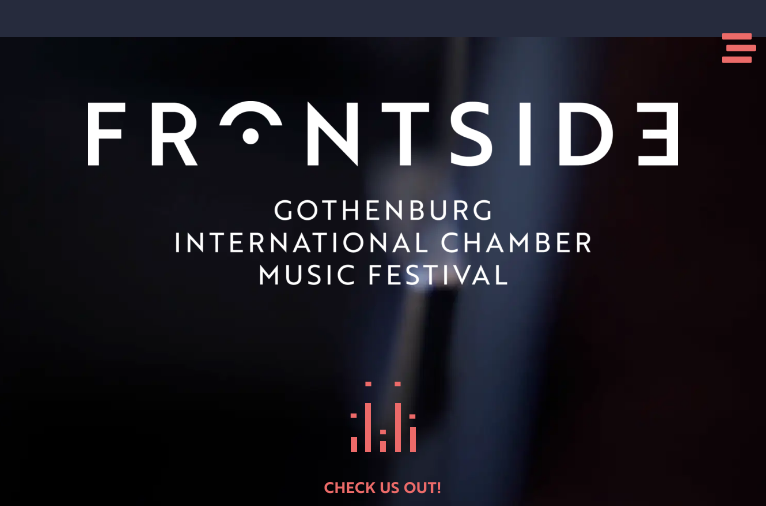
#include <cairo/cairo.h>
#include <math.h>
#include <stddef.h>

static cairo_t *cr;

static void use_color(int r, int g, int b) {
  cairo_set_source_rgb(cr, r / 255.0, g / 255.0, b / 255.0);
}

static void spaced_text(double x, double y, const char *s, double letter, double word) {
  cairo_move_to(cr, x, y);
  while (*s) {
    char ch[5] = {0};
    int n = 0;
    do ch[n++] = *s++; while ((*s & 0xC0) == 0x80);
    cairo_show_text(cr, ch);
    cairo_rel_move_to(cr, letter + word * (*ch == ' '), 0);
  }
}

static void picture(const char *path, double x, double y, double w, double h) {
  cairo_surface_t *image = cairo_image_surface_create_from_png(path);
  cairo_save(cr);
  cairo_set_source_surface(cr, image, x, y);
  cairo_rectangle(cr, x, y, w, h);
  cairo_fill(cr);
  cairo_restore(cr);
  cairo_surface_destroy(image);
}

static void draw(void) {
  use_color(38, 43, 61);
  cairo_paint(cr);
  picture("img_02.png", 0, 37, 766, 469);
  picture("img_01.png", 722, 33, 34, 30);
  picture("img_03.png", 88, 101, 590, 184);
  picture("img_04.png", 350, 381, 66, 71);
  cairo_select_font_face(cr, "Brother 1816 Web", CAIRO_FONT_SLANT_NORMAL, CAIRO_FONT_WEIGHT_BOLD);
  cairo_set_font_size(cr, 15);
  use_color(236, 107, 105);
  spaced_text(324, 493, "CHECK US OUT!", 0.25, 0);
}

int main(void) {
  cairo_surface_t *surface = cairo_image_surface_create(CAIRO_FORMAT_RGB24, 766, 506);
  cr = cairo_create(surface);
  cairo_font_options_t *options = cairo_font_options_create();
  cairo_font_options_set_hint_metrics(options, CAIRO_HINT_METRICS_OFF);
  cairo_font_options_set_hint_style(options, CAIRO_HINT_STYLE_NONE);
  cairo_set_font_options(cr, options);
  cairo_set_miter_limit(cr, 4);
  draw();
  cairo_surface_write_to_png(surface, "out.png");
  cairo_font_options_destroy(options);
  cairo_destroy(cr);
  cairo_surface_destroy(surface);
  return 0;
}
